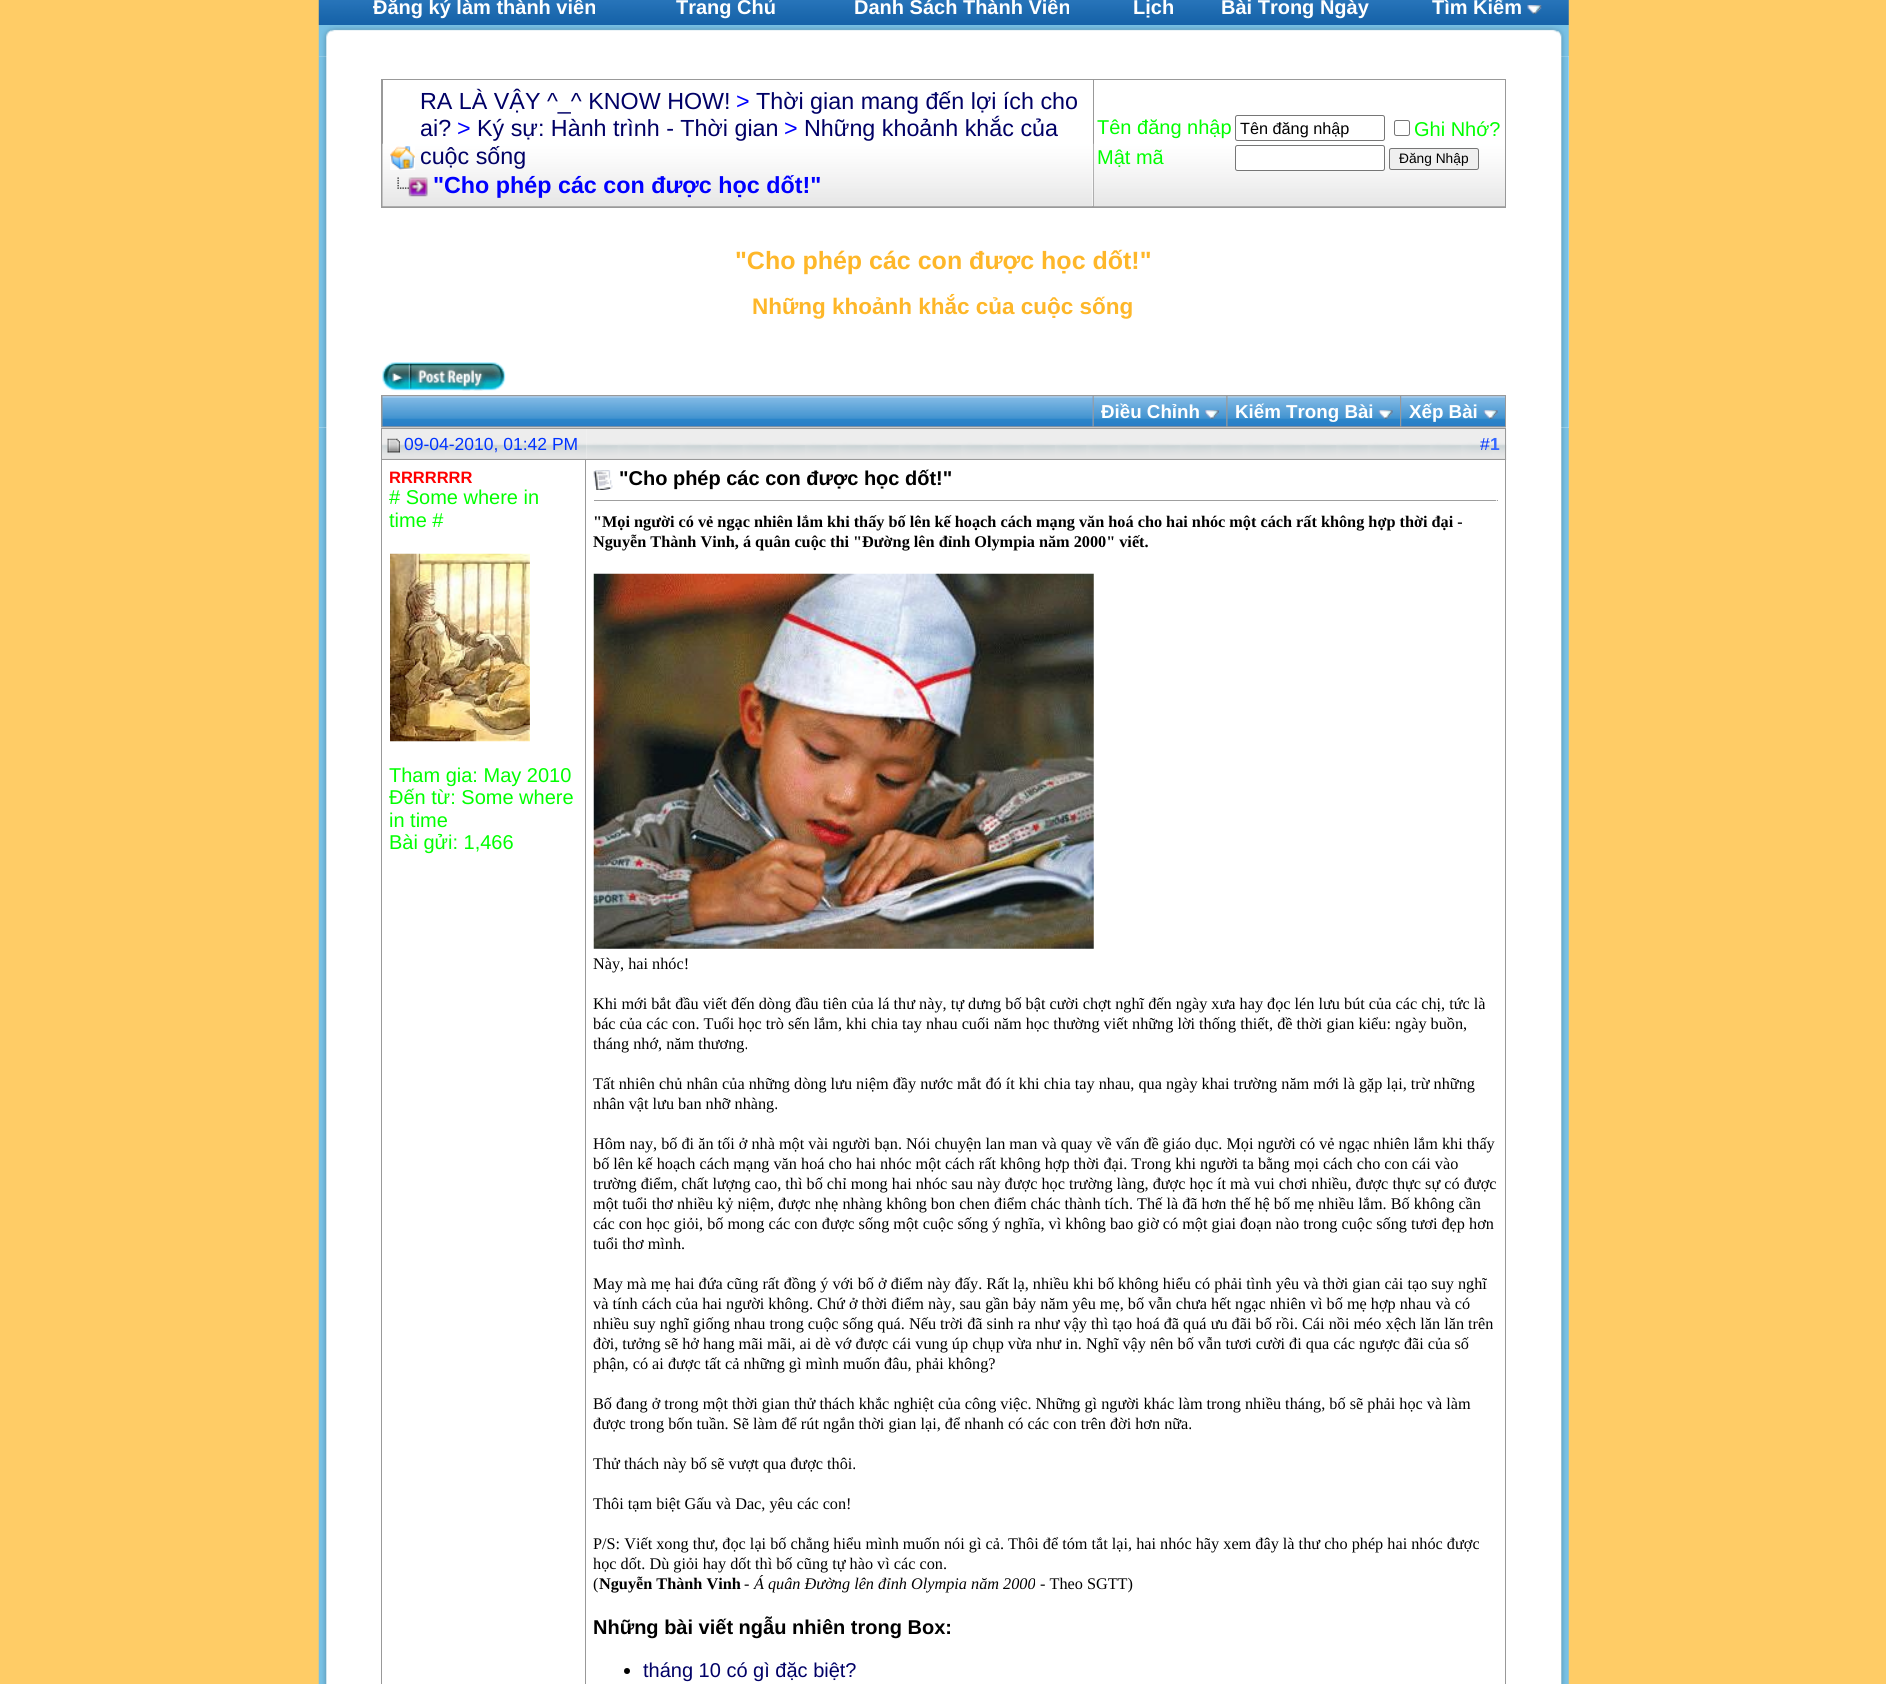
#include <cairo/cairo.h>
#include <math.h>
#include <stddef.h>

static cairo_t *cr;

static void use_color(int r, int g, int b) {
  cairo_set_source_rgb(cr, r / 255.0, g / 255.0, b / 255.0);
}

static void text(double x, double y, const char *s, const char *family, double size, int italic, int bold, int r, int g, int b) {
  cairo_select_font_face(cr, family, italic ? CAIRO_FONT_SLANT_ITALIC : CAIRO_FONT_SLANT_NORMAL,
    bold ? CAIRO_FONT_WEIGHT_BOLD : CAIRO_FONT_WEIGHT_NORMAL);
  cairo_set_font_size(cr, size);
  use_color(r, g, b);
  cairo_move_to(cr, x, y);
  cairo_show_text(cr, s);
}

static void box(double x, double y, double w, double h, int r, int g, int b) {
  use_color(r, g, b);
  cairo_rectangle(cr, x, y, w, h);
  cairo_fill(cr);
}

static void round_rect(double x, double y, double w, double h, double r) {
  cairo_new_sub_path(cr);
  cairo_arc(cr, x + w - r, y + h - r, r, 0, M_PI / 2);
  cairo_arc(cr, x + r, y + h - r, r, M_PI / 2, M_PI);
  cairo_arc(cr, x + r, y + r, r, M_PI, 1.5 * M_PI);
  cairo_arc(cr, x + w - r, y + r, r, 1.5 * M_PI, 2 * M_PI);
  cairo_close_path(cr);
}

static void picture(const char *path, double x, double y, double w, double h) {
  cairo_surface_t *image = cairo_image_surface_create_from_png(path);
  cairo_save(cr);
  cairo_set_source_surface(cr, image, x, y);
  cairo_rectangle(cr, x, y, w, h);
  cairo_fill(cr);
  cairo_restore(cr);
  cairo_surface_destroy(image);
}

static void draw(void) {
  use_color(255, 204, 102);
  cairo_paint(cr);
  picture("img_01.png", 318, 0, 1251, 25);
  picture("img_02.png", 1527, 5, 15, 9);
  box(319, 56, 1250, 372, 255, 255, 255);
  picture("img_04.png", 318, 56, 1251, 372);
  picture("img_03.png", 318, 25, 1251, 32);
  box(381, 79, 1125, 129, 153, 153, 153);
  box(383, 80, 710, 126, 255, 255, 255);
  picture("img_05.png", 382, 143, 711, 64);
  picture("img_06.png", 390, 146, 25, 24);
  picture("img_07.png", 397, 177, 31, 20);
  box(1094, 80, 411, 64, 255, 255, 255);
  picture("img_08.png", 1093, 143, 412, 64);
  round_rect(1235.5, 115.5, 149, 25, 2);
  use_color(118, 118, 118);
  cairo_set_line_width(cr, 1);
  cairo_stroke(cr);
  round_rect(1394.5, 120.5, 15, 15, 2);
  cairo_stroke(cr);
  use_color(255, 255, 255);
  round_rect(1235.5, 145.5, 149, 25, 2);
  cairo_fill_preserve(cr);
  use_color(118, 118, 118);
  cairo_stroke(cr);
  use_color(239, 239, 239);
  round_rect(1389.5, 148.5, 89, 21, 2);
  cairo_fill_preserve(cr);
  use_color(118, 118, 118);
  cairo_stroke(cr);
  picture("img_09.png", 382, 362, 124, 29);
  box(381, 395, 1125, 33, 153, 153, 153);
  box(383, 396, 710, 30, 134, 155, 191);
  picture("img_10.png", 382, 396, 711, 31);
  picture("img_11.png", 1093, 396, 134, 31);
  picture("img_12.png", 1205, 410, 14, 9);
  picture("img_13.png", 1227, 396, 173, 31);
  picture("img_14.png", 1378, 410, 15, 9);
  box(1401, 396, 104, 30, 134, 155, 191);
  picture("img_15.png", 1401, 396, 104, 31);
  picture("img_16.png", 1483, 410, 15, 9);
  picture("img_17.png", 318, 427, 1251, 1257);
  picture("img_18.png", 382, 429, 205, 30);
  box(381, 428, 205, 1, 153, 153, 153);
  box(381, 459, 205, 1, 153, 153, 153);
  box(381, 428, 1, 1256, 153, 153, 153);
  picture("img_19.png", 387, 438, 13, 15);
  picture("img_20.png", 586, 428, 921, 32);
  box(586, 428, 920, 1, 153, 153, 153);
  box(1505, 428, 1, 1256, 153, 153, 153);
  box(586, 459, 920, 1, 153, 153, 153);
  box(585, 460, 1, 1224, 153, 153, 153);
  picture("img_21.png", 390, 553, 140, 189);
  picture("img_22.png", 593, 470, 20, 20);
  box(594, 500, 904, 1, 159, 159, 159);
  box(1496, 500, 1, 1, 238, 238, 238);
  picture("img_23.png", 593, 573, 501, 376);
  use_color(0, 0, 0);
  cairo_arc(cr, 627, 1671, 3, 0, 2 * M_PI);
  cairo_fill(cr);
  text(373, 14, "Đăng ký làm thành viên", "Liberation Sans", 20, 0, 1, 255, 255, 255);
  text(676, 14, "Trang Chủ", "Liberation Sans", 20, 0, 1, 255, 255, 255);
  text(854, 14, "Danh Sách Thành Viên", "Liberation Sans", 20, 0, 1, 255, 255, 255);
  text(1133, 14, "Lịch", "Liberation Sans", 20, 0, 1, 255, 255, 255);
  text(1221, 14, "Bài Trong Ngày", "Liberation Sans", 20, 0, 1, 255, 255, 255);
  text(1432, 14, "Tìm Kiếm", "Liberation Sans", 20, 0, 1, 255, 255, 255);
  text(420, 109, "RA LÀ VẬY ^_^ KNOW HOW!", "Liberation Sans", 23.3, 0, 0, 0, 0, 102);
  text(736, 109, ">", "Liberation Sans", 23.3, 0, 0, 0, 0, 255);
  text(756, 109, "Thời gian mang đến lợi ích cho", "Liberation Sans", 23.3, 0, 0, 0, 0, 102);
  text(420, 136, "ai?", "Liberation Sans", 23.3, 0, 0, 0, 0, 102);
  text(457, 136, ">", "Liberation Sans", 23.3, 0, 0, 0, 0, 255);
  text(477, 136, "Ký sự: Hành trình - Thời gian", "Liberation Sans", 23.3, 0, 0, 0, 0, 102);
  text(784, 136, ">", "Liberation Sans", 23.3, 0, 0, 0, 0, 255);
  text(804, 136, "Những khoảnh khắc của", "Liberation Sans", 23.3, 0, 0, 0, 0, 102);
  text(420, 164, "cuộc sống", "Liberation Sans", 23.3, 0, 0, 0, 0, 102);
  text(433, 193, "\"Cho phép các con được học dốt!\"", "Liberation Sans", 23.3, 0, 1, 0, 0, 255);
  text(1097, 134, "Tên đăng nhập", "Liberation Sans", 20, 0, 0, 0, 255, 0);
  text(1240, 134, "Tên đăng nhập", "Liberation Sans", 16.25, 0, 0, 0, 0, 0);
  text(1414, 136, "Ghi Nhớ?", "Liberation Sans", 20, 0, 0, 0, 255, 0);
  text(1097, 164, "Mật mã", "Liberation Sans", 20, 0, 0, 0, 255, 0);
  text(1399, 163, "Ðăng Nhập", "Liberation Sans", 13.75, 0, 0, 0, 0, 0);
  text(735, 269, "\"Cho phép các con được học dốt!\"", "Liberation Sans", 25, 0, 1, 254, 183, 41);
  text(752, 314, "Những khoảnh khắc của cuộc sống", "Liberation Sans", 22.5, 0, 1, 254, 183, 41);
  text(1101, 418, "Ðiều Chỉnh", "Liberation Sans", 18.75, 0, 1, 255, 255, 255);
  text(1235, 418, "Kiếm Trong Bài", "Liberation Sans", 18.75, 0, 1, 255, 255, 255);
  text(1409, 418, "Xếp Bài", "Liberation Sans", 18.75, 0, 1, 255, 255, 255);
  text(404, 450, "09-04-2010, 01:42 PM", "Liberation Sans", 17.5, 0, 0, 0, 51, 255);
  text(1480, 450, "#", "Liberation Sans", 17.5, 0, 0, 0, 51, 255);
  text(1490, 450, "1", "Liberation Sans", 17.5, 0, 1, 51, 102, 255);
  text(389, 483, "RRRRRRR", "Liberation Sans", 16.5, 0, 1, 255, 0, 0);
  text(389, 504, "# Some where in", "Liberation Sans", 20, 0, 0, 0, 255, 0);
  text(389, 527, "time #", "Liberation Sans", 20, 0, 0, 0, 255, 0);
  text(389, 782, "Tham gia: May 2010", "Liberation Sans", 20, 0, 0, 0, 255, 0);
  text(389, 804, "Đến từ: Some where", "Liberation Sans", 20, 0, 0, 0, 255, 0);
  text(389, 827, "in time", "Liberation Sans", 20, 0, 0, 0, 255, 0);
  text(389, 849, "Bài gửi: 1,466", "Liberation Sans", 20, 0, 0, 0, 255, 0);
  text(619, 485, "\"Cho phép các con được học dốt!\"", "Liberation Sans", 20, 0, 1, 0, 0, 0);
  text(593, 527, "\"Mọi người có vẻ ngạc nhiên lắm khi thấy bố lên kế hoạch cách mạng văn hoá cho hai nhóc một cách rất không hợp thời đại -", "Liberation Serif", 16.25, 0, 1, 0, 0, 0);
  text(593, 547, "Nguyễn Thành Vinh, á quân cuộc thi \"Đường lên đỉnh Olympia năm 2000\" viết.", "Liberation Serif", 16.25, 0, 1, 0, 0, 0);
  text(593, 969, "Này, hai nhóc!", "Liberation Serif", 16.25, 0, 0, 0, 0, 0);
  text(593, 1009, "Khi mới bắt đầu viết đến dòng đầu tiên của lá thư này, tự dưng bố bật cười chợt nghĩ đến ngày xưa hay đọc lén lưu bút của các chị, tức là", "Liberation Serif", 16.25, 0, 0, 0, 0, 0);
  text(593, 1029, "bác của các con. Tuổi học trò sến lắm, khi chia tay nhau cuối năm học thường viết những lời thống thiết, đề thời gian kiểu: ngày buồn,", "Liberation Serif", 16.25, 0, 0, 0, 0, 0);
  text(593, 1049, "tháng nhớ, năm thương.", "Liberation Serif", 16.25, 0, 0, 0, 0, 0);
  text(593, 1089, "Tất nhiên chủ nhân của những dòng lưu niệm đầy nước mắt đó ít khi chia tay nhau, qua ngày khai trường năm mới là gặp lại, trừ những", "Liberation Serif", 16.25, 0, 0, 0, 0, 0);
  text(593, 1109, "nhân vật lưu ban nhỡ nhàng.", "Liberation Serif", 16.25, 0, 0, 0, 0, 0);
  text(593, 1149, "Hôm nay, bố đi ăn tối ở nhà một vài người bạn. Nói chuyện lan man và quay về vấn đề giáo dục. Mọi người có vẻ ngạc nhiên lắm khi thấy", "Liberation Serif", 16.25, 0, 0, 0, 0, 0);
  text(593, 1169, "bố lên kế hoạch cách mạng văn hoá cho hai nhóc một cách rất không hợp thời đại. Trong khi người ta bằng mọi cách cho con cái vào", "Liberation Serif", 16.25, 0, 0, 0, 0, 0);
  text(593, 1189, "trường điểm, chất lượng cao, thì bố chỉ mong hai nhóc sau này được học trường làng, được học ít mà vui chơi nhiều, được thực sự có được", "Liberation Serif", 16.25, 0, 0, 0, 0, 0);
  text(593, 1209, "một tuổi thơ nhiều kỷ niệm, được nhẹ nhàng không bon chen điểm chác thành tích. Thế là đã hơn thế hệ bố mẹ nhiều lắm. Bố không cần", "Liberation Serif", 16.25, 0, 0, 0, 0, 0);
  text(593, 1229, "các con học giỏi, bố mong các con được sống một cuộc sống ý nghĩa, vì không bao giờ có một giai đoạn nào trong cuộc sống tươi đẹp hơn", "Liberation Serif", 16.25, 0, 0, 0, 0, 0);
  text(593, 1249, "tuổi thơ mình.", "Liberation Serif", 16.25, 0, 0, 0, 0, 0);
  text(593, 1289, "May mà mẹ hai đứa cũng rất đồng ý với bố ở điểm này đấy. Rất lạ, nhiều khi bố không hiểu có phải tình yêu và thời gian cải tạo suy nghĩ", "Liberation Serif", 16.25, 0, 0, 0, 0, 0);
  text(593, 1309, "và tính cách của hai người không. Chứ ở thời điểm này, sau gần bảy năm yêu mẹ, bố vẫn chưa hết ngạc nhiên vì bố mẹ hợp nhau và có", "Liberation Serif", 16.25, 0, 0, 0, 0, 0);
  text(593, 1329, "nhiều suy nghĩ giống nhau trong cuộc sống quá. Nếu trời đã sinh ra như vậy thì tạo hoá đã quá ưu đãi bố rồi. Cái nồi méo xệch lăn lăn trên", "Liberation Serif", 16.25, 0, 0, 0, 0, 0);
  text(593, 1349, "đời, tưởng sẽ hở hang mãi mãi, ai dè vớ được cái vung úp chụp vừa như in. Nghĩ vậy nên bố vẫn tươi cười đi qua các ngược đãi của số", "Liberation Serif", 16.25, 0, 0, 0, 0, 0);
  text(593, 1369, "phận, có ai được tất cả những gì mình muốn đâu, phải không?", "Liberation Serif", 16.25, 0, 0, 0, 0, 0);
  text(593, 1409, "Bố đang ở trong một thời gian thử thách khắc nghiệt của công việc. Những gì người khác làm trong nhiều tháng, bố sẽ phải học và làm", "Liberation Serif", 16.25, 0, 0, 0, 0, 0);
  text(593, 1429, "được trong bốn tuần. Sẽ làm để rút ngắn thời gian lại, để nhanh có các con trên đời hơn nữa.", "Liberation Serif", 16.25, 0, 0, 0, 0, 0);
  text(593, 1469, "Thử thách này bố sẽ vượt qua được thôi.", "Liberation Serif", 16.25, 0, 0, 0, 0, 0);
  text(593, 1509, "Thôi tạm biệt Gấu và Dac, yêu các con!", "Liberation Serif", 16.25, 0, 0, 0, 0, 0);
  text(593, 1549, "P/S: Viết xong thư, đọc lại bố chẳng hiểu mình muốn nói gì cả. Thôi để tóm tắt lại, hai nhóc hãy xem đây là thư cho phép hai nhóc được", "Liberation Serif", 16.25, 0, 0, 0, 0, 0);
  text(593, 1569, "học dốt. Dù giỏi hay dốt thì bố cũng tự hào vì các con.", "Liberation Serif", 16.25, 0, 0, 0, 0, 0);
  text(593, 1589, "(", "Liberation Serif", 16.25, 0, 0, 0, 0, 0);
  text(599, 1589, "Nguyễn Thành Vinh", "Liberation Serif", 16.25, 0, 1, 0, 0, 0);
  text(744, 1589, "-", "Liberation Serif", 16.25, 0, 0, 0, 0, 0);
  text(754, 1589, "Á quân Đường lên đỉnh Olympia năm 2000", "Liberation Serif", 16.25, 1, 0, 0, 0, 0);
  text(1040, 1589, "- Theo SGTT)", "Liberation Serif", 16.25, 0, 0, 0, 0, 0);
  text(593, 1634, "Những bài viết ngẫu nhiên trong Box:", "Liberation Sans", 20, 0, 1, 0, 0, 0);
  text(643, 1677, "tháng 10 có gì đặc biệt?", "Liberation Sans", 20, 0, 0, 0, 0, 102);
}

int main(void) {
  cairo_surface_t *surface = cairo_image_surface_create(CAIRO_FORMAT_RGB24, 1886, 1684);
  cr = cairo_create(surface);
  cairo_font_options_t *options = cairo_font_options_create();
  cairo_font_options_set_hint_metrics(options, CAIRO_HINT_METRICS_OFF);
  cairo_font_options_set_hint_style(options, CAIRO_HINT_STYLE_NONE);
  cairo_set_font_options(cr, options);
  cairo_set_miter_limit(cr, 4);
  draw();
  cairo_surface_write_to_png(surface, "out.png");
  cairo_font_options_destroy(options);
  cairo_destroy(cr);
  cairo_surface_destroy(surface);
  return 0;
}
